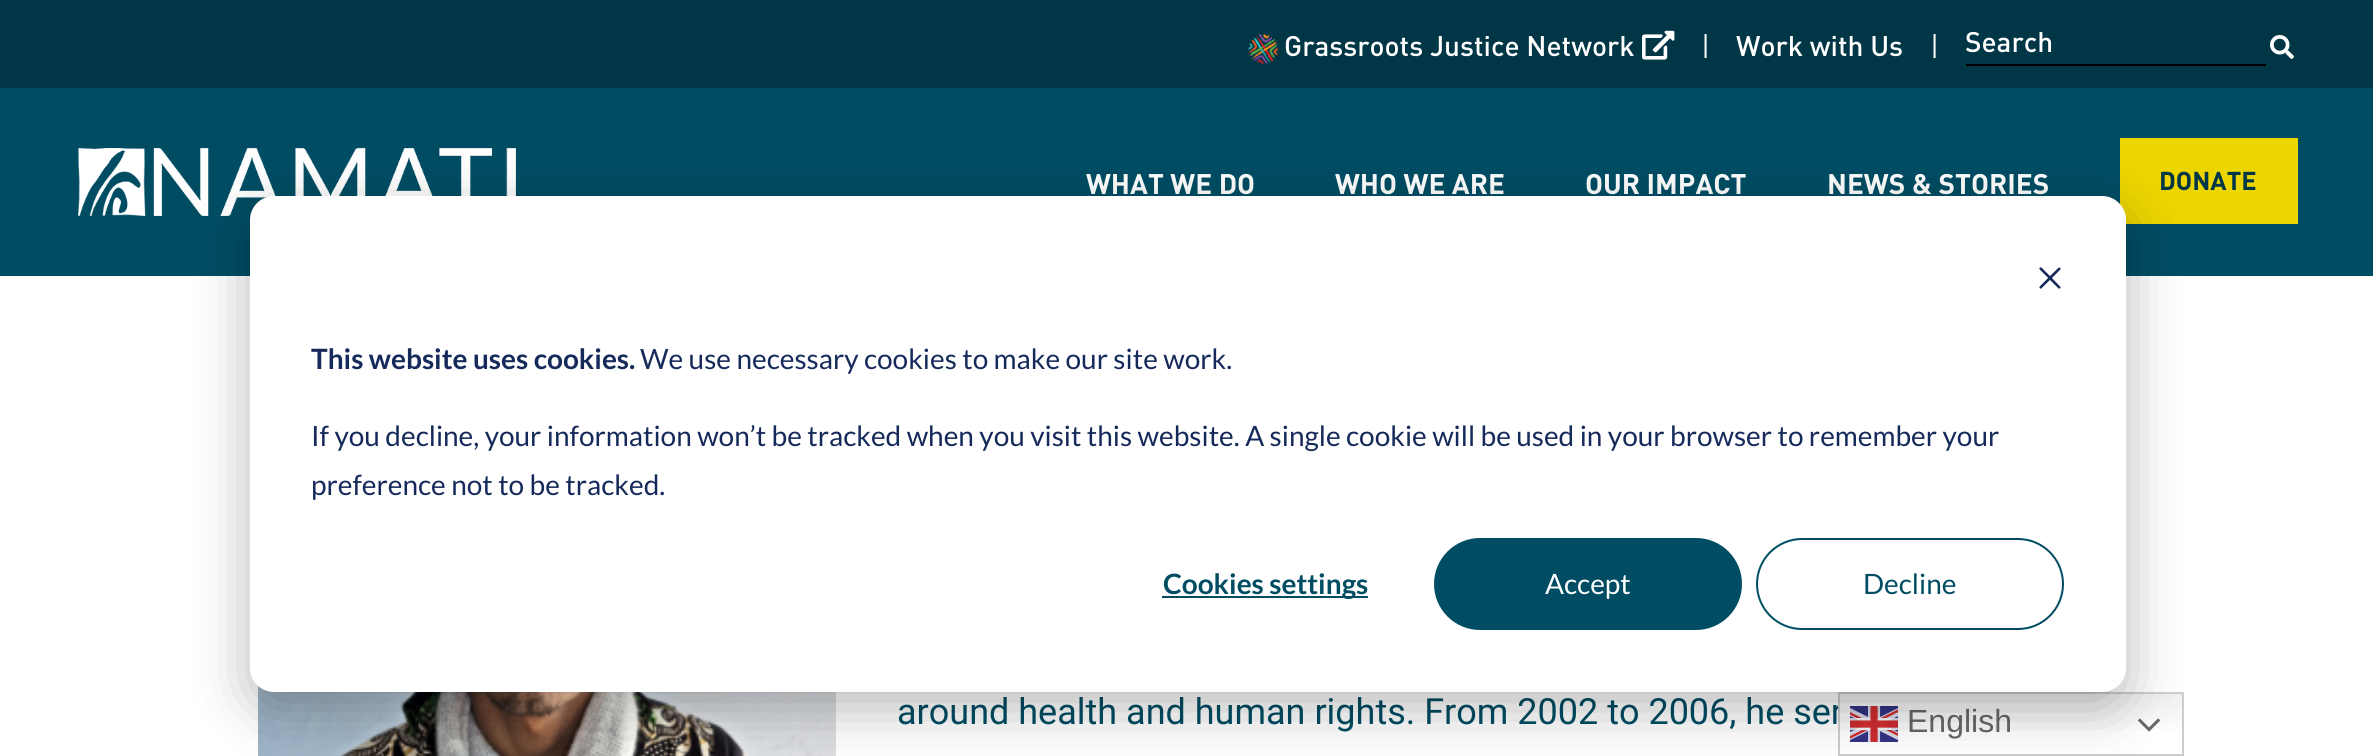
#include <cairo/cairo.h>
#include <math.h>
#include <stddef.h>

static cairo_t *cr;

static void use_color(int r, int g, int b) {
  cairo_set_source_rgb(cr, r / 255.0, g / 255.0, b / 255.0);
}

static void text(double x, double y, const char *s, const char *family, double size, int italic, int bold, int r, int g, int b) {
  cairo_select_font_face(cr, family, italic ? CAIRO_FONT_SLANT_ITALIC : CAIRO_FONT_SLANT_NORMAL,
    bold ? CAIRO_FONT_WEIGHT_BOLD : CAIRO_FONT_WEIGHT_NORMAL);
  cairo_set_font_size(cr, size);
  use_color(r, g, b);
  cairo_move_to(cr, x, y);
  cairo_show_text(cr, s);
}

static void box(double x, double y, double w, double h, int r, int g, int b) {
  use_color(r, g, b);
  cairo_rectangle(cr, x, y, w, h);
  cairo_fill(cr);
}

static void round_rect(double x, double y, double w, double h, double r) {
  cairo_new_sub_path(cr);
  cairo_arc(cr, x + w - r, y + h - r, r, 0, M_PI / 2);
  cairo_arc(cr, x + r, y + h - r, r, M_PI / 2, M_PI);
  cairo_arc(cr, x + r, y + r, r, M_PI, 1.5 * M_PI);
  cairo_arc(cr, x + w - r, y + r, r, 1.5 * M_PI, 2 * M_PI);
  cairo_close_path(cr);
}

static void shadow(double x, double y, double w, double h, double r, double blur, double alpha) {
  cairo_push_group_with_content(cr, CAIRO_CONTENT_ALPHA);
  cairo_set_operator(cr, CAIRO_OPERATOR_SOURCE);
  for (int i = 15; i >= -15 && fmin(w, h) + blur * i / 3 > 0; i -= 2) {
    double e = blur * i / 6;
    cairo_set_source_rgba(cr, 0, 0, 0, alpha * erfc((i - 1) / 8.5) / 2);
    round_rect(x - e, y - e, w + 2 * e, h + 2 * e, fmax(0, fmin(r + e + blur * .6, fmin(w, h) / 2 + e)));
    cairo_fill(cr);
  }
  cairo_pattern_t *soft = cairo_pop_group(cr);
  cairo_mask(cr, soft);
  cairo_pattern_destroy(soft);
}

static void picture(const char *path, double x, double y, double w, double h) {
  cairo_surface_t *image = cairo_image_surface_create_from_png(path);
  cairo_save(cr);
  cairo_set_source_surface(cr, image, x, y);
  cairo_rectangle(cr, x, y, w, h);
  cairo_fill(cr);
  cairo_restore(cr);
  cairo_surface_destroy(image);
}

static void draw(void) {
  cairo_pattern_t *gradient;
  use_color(255, 255, 255);
  cairo_paint(cr);
  box(0, 0, 2373, 88, 0, 54, 69);
  picture("img_01.png", 1248, 34, 30, 30);
  picture("img_02.png", 1642, 30, 33, 30);
  box(1966, 64, 300, 2, 0, 0, 0);
  picture("img_03.png", 2270, 35, 24, 24);
  box(0, 88, 2373, 188, 0, 77, 99);
  picture("img_04.png", 78, 148, 438, 68);
  box(2120, 138, 178, 86, 237, 213, 0);
  picture("img_06.png", 258, 685, 578, 71);
  text(1284, 56, "Grassroots Justice Network", "DIN Medium", 28, 0, 0, 255, 255, 255);
  text(1701, 56, "|", "DIN", 28, 0, 0, 255, 255, 255);
  text(1736, 56, "Work with Us", "DIN Medium", 28, 0, 0, 255, 255, 255);
  text(1930, 56, "|", "DIN", 28, 0, 0, 255, 255, 255);
  text(1965, 52, "Search", "DIN Medium", 28, 0, 0, 255, 255, 255);
  text(1086, 194, "WHAT WE DO", "DIN", 28, 0, 1, 255, 255, 255);
  text(1335, 194, "WHO WE ARE", "DIN", 28, 0, 1, 255, 255, 255);
  text(1585, 194, "OUR IMPACT", "DIN", 28, 0, 1, 255, 255, 255);
  text(1827, 194, "NEWS & STORIES", "DIN", 28, 0, 1, 255, 255, 255);
  text(2159, 190, "DONATE", "DIN", 25.5, 0, 1, 0, 54, 69);
  text(897, 724, "around health and human rights. From 2002 to 2006, he ser", "Roboto", 36, 0, 0, 0, 77, 99);
  gradient = cairo_pattern_create_linear(2011, 692, 2011, 756);
  cairo_pattern_add_color_stop_rgba(gradient, 0, 0.937, 0.937, 0.937, 1);
  cairo_pattern_add_color_stop_rgba(gradient, 0.7, 1, 1, 1, 1);
  cairo_set_source(cr, gradient);
  cairo_pattern_destroy(gradient);
  cairo_rectangle(cr, 1840, 694, 342, 36);
  cairo_fill(cr);
  cairo_rectangle(cr, 1839, 693, 344, 62);
  use_color(204, 204, 204);
  cairo_stroke(cr);
  picture("img_07.png", 1850, 706, 48, 36);
  text(1907, 732, "English", "Liberation Sans", 32, 0, 0, 102, 102, 102);
  picture("img_08.png", 2138, 718, 22, 14);
  use_color(0, 0, 0);
  shadow(250, 212, 1876, 496, 24, 28, 0.28);
  use_color(255, 255, 255);
  round_rect(250, 196, 1876, 496, 24);
  cairo_fill(cr);
  picture("img_05.png", 2039, 267, 22, 22);
  round_rect(1757, 539, 306, 90, 45);
  use_color(0, 77, 99);
  cairo_stroke(cr);
  text(1863, 594, "Decline", "Lato", 28, 0, 0, 0, 77, 99);
  round_rect(1435, 539, 306, 90, 45);
  cairo_fill_preserve(cr);
  cairo_stroke(cr);
  text(1545, 594, "Accept", "Lato", 28, 0, 0, 255, 255, 255);
  box(1162, 596, 206, 2, 0, 77, 99);
  text(1163, 594, "Cookies settings", "Lato", 28, 0, 1, 0, 77, 99);
  text(311, 495, "preference not to be tracked.", "Lato", 28, 0, 0, 21, 41, 90);
  text(311, 446, "If you decline, your information won’t be tracked when you visit this website. A single cookie will be used in your browser to remember your", "Lato", 28, 0, 0, 21, 41, 90);
  text(640, 369, "We use necessary cookies to make our site work.", "Lato", 28, 0, 0, 21, 41, 90);
  text(311, 369, "This website uses cookies.", "Lato", 28, 0, 1, 21, 41, 90);
}

int main(void) {
  cairo_surface_t *surface = cairo_image_surface_create(CAIRO_FORMAT_RGB24, 2373, 756);
  cr = cairo_create(surface);
  cairo_font_options_t *options = cairo_font_options_create();
  cairo_font_options_set_hint_metrics(options, CAIRO_HINT_METRICS_OFF);
  cairo_font_options_set_hint_style(options, CAIRO_HINT_STYLE_NONE);
  cairo_set_font_options(cr, options);
  cairo_set_miter_limit(cr, 4);
  draw();
  cairo_surface_write_to_png(surface, "out.png");
  cairo_font_options_destroy(options);
  cairo_destroy(cr);
  cairo_surface_destroy(surface);
  return 0;
}
